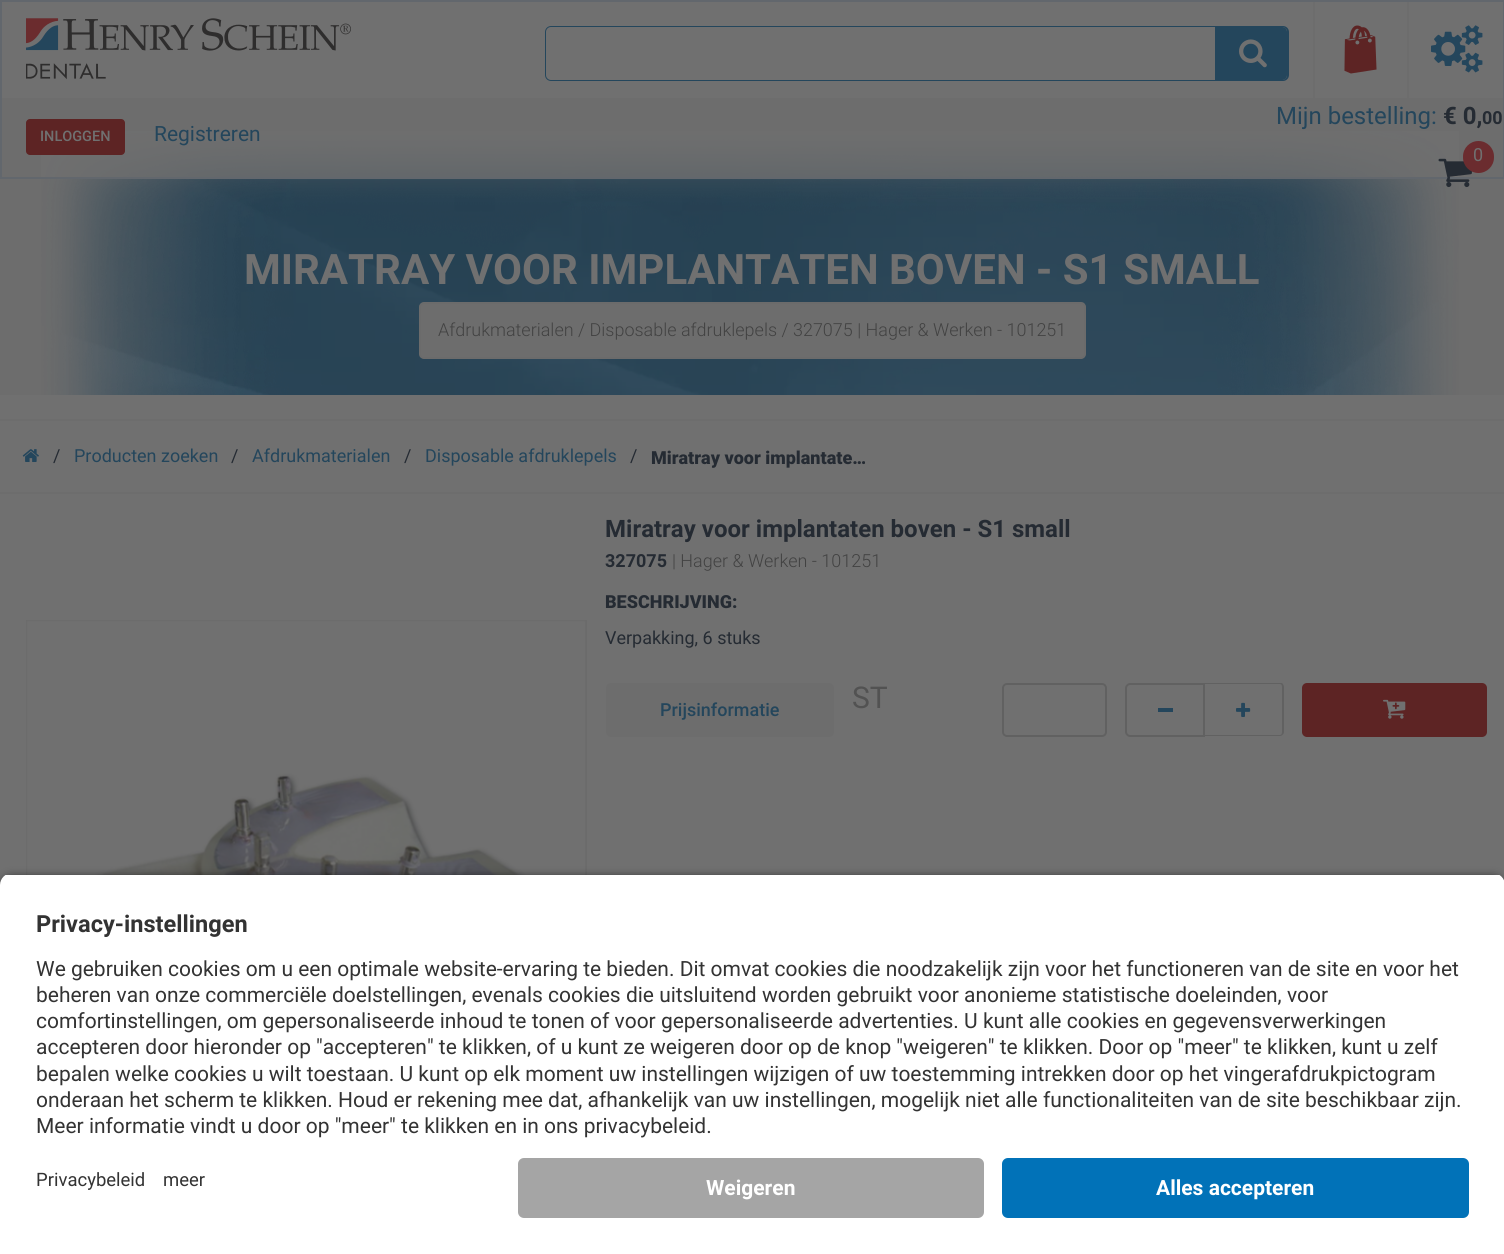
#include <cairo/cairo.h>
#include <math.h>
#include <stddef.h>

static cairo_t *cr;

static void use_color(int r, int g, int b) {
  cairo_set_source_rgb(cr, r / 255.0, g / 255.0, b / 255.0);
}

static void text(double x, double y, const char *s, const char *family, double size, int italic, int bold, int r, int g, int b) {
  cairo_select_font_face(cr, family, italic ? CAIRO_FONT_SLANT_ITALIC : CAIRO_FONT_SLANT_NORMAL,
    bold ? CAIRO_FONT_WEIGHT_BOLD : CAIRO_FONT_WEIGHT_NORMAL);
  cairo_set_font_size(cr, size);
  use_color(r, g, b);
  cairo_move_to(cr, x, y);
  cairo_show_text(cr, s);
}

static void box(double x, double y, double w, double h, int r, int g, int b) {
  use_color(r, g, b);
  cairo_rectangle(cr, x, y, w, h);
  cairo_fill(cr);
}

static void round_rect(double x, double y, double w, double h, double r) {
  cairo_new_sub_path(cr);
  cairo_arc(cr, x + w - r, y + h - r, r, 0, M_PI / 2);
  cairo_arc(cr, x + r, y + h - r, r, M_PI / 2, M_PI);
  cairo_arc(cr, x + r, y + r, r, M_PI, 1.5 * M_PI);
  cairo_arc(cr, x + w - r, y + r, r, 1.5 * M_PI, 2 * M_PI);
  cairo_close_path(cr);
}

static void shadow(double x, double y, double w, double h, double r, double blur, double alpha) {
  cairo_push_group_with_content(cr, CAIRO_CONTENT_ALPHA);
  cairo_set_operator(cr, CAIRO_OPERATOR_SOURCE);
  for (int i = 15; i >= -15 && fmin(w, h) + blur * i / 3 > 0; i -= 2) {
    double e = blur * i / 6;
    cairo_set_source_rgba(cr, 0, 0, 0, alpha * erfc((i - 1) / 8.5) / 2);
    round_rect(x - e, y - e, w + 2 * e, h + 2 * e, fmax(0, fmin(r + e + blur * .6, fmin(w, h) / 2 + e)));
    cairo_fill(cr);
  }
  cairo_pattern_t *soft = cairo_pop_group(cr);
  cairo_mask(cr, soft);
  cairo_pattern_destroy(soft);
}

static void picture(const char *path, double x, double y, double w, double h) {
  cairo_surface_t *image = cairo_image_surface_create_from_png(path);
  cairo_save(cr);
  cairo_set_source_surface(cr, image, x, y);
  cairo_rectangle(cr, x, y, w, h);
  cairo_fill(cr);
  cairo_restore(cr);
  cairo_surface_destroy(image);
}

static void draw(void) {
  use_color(109, 109, 109);
  cairo_paint(cr);
  picture("img_06.png", 41, 131, 1418, 264);
  cairo_rectangle(cr, 1, 1, 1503, 177);
  use_color(98, 103, 109);
  cairo_stroke(cr);
  box(2, 2, 1501, 96, 112, 112, 112);
  picture("img_01.png", 26, 18, 325, 62);
  round_rect(546, 27, 742, 53, 5);
  use_color(36, 70, 92);
  cairo_stroke(cr);
  use_color(112, 112, 112);
  round_rect(546, 27, 741, 53, 5);
  cairo_fill(cr);
  use_color(36, 70, 92);
  cairo_new_path(cr);
  cairo_move_to(cr, 1215, 27);
  cairo_line_to(cr, 1282, 27);
  cairo_curve_to(cr, 1285, 27, 1287, 29, 1287, 32);
  cairo_line_to(cr, 1287, 75);
  cairo_curve_to(cr, 1287, 78, 1285, 80, 1282, 80);
  cairo_line_to(cr, 1215, 80);
  cairo_close_path(cr);
  cairo_fill(cr);
  picture("img_02.png", 1239, 39, 28, 29);
  box(1313, 2, 2, 96, 109, 109, 109);
  picture("img_03.png", 1344, 25, 33, 49);
  box(1407, 2, 2, 96, 109, 109, 109);
  picture("img_04.png", 1431, 25, 52, 48);
  cairo_set_source_rgba(cr, 0.439, 0.439, 0.439, 0.8);
  cairo_rectangle(cr, 41, 131, 1418, 46);
  cairo_fill(cr);
  use_color(93, 36, 36);
  round_rect(26, 119, 99, 36, 4);
  cairo_fill(cr);
  picture("img_05.png", 1438, 158, 34, 30);
  use_color(107, 44, 47);
  round_rect(1463, 141, 31, 32, 15.5);
  cairo_fill(cr);
  use_color(109, 109, 109);
  round_rect(420, 303, 665, 55, 4);
  cairo_fill_preserve(cr);
  use_color(107, 107, 107);
  cairo_stroke(cr);
  box(0, 395, 1504, 490, 112, 112, 112);
  box(0, 419, 1504, 2, 109, 109, 109);
  box(0, 492, 1504, 2, 109, 109, 109);
  picture("img_07.png", 22, 449, 17, 13);
  cairo_rectangle(cr, 27, 621, 559, 559);
  use_color(107, 107, 107);
  cairo_stroke(cr);
  picture("img_08.png", 26, 620, 560, 255);
  round_rect(1003, 684, 103, 52, 4);
  use_color(97, 97, 97);
  cairo_stroke(cr);
  cairo_new_path(cr);
  cairo_move_to(cr, 1130, 684);
  cairo_line_to(cr, 1204, 684);
  cairo_line_to(cr, 1204, 736);
  cairo_line_to(cr, 1130, 736);
  cairo_curve_to(cr, 1128, 736, 1126, 734, 1126, 732);
  cairo_line_to(cr, 1126, 688);
  cairo_curve_to(cr, 1126, 686, 1128, 684, 1130, 684);
  cairo_close_path(cr);
  cairo_stroke(cr);
  box(1158, 708, 15, 4, 36, 70, 92);
  cairo_save(cr);
  cairo_rectangle(cr, 1125, 683, 159, 54);
  cairo_clip(cr);
  use_color(97, 97, 97);
  cairo_set_fill_rule(cr, CAIRO_FILL_RULE_EVEN_ODD);
  cairo_new_path(cr);
  cairo_move_to(cr, 1204, 682);
  cairo_line_to(cr, 1280, 682);
  cairo_curve_to(cr, 1282, 682, 1284, 685, 1284, 687);
  cairo_line_to(cr, 1284, 732);
  cairo_curve_to(cr, 1284, 734, 1282, 736, 1280, 736);
  cairo_line_to(cr, 1204, 736);
  cairo_close_path(cr);
  cairo_move_to(cr, 1204, 684);
  cairo_line_to(cr, 1280, 684);
  cairo_curve_to(cr, 1281, 684, 1282, 685, 1282, 687);
  cairo_line_to(cr, 1282, 732);
  cairo_curve_to(cr, 1282, 734, 1281, 735, 1280, 735);
  cairo_line_to(cr, 1204, 735);
  cairo_close_path(cr);
  cairo_fill(cr);
  cairo_restore(cr);
  picture("img_09.png", 1236, 702, 15, 15);
  use_color(93, 36, 36);
  round_rect(1302, 683, 185, 54, 5);
  cairo_fill(cr);
  picture("img_10.png", 1383, 699, 23, 20);
  use_color(109, 109, 109);
  round_rect(606, 683, 228, 54, 5);
  cairo_fill(cr);
  use_color(0, 0, 0);
  shadow(0, 878, 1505, 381, 12, 5, 0.8);
  cairo_save(cr);
  cairo_new_path(cr);
  cairo_move_to(cr, 12, 873);
  cairo_line_to(cr, 1493, 873);
  cairo_curve_to(cr, 1499.5, 873, 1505, 878.5, 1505, 885);
  cairo_line_to(cr, 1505, 1146);
  cairo_line_to(cr, 0, 1146);
  cairo_line_to(cr, 0, 885);
  cairo_curve_to(cr, 0, 878.5, 5.5, 873, 12, 873);
  cairo_close_path(cr);
  cairo_clip(cr);
  box(0, 875, 1504, 271, 255, 255, 255);
  cairo_restore(cr);
  box(0, 1146, 1504, 108, 255, 255, 255);
  use_color(165, 165, 165);
  round_rect(518, 1158, 466, 60, 6);
  cairo_fill(cr);
  use_color(1, 114, 184);
  round_rect(1002, 1158, 467, 60, 6);
  cairo_fill(cr);
  text(40, 141, "INLOGGEN", "Roboto Medium", 14.5, 0, 0, 112, 112, 112);
  text(154, 141, "Registreren", "Roboto", 21, 0, 0, 36, 70, 92);
  text(1276, 124, "Mijn bestelling:", "Roboto", 24, 0, 0, 36, 70, 92);
  text(1443, 124, "€ 0,", "Roboto", 24, 0, 1, 37, 43, 51);
  text(1482, 124, "00", "Roboto", 18, 0, 1, 37, 43, 51);
  text(1473, 161, "0", "Roboto", 18, 0, 0, 112, 112, 112);
  text(244, 284, "MIRATRAY VOOR IMPLANTATEN BOVEN - S1 SMALL", "Roboto", 42, 0, 1, 112, 112, 112);
  text(438, 336, "Afdrukmaterialen / Disposable afdruklepels / 327075 | Hager & Werken - 101251", "Roboto Light", 18, 0, 0, 66, 66, 66);
  text(53, 462, "/", "Roboto", 18, 0, 0, 37, 43, 51);
  text(74, 462, "Producten zoeken", "Roboto", 18, 0, 0, 36, 70, 92);
  text(231, 462, "/", "Roboto", 18, 0, 0, 37, 43, 51);
  text(252, 462, "Afdrukmaterialen", "Roboto", 18, 0, 0, 36, 70, 92);
  text(404, 462, "/", "Roboto", 18, 0, 0, 37, 43, 51);
  text(425, 462, "Disposable afdruklepels", "Roboto", 18, 0, 0, 36, 70, 92);
  text(630, 462, "/", "Roboto", 18, 0, 0, 37, 43, 51);
  text(651, 464, "Miratray voor implantate…", "Roboto Black", 18, 0, 0, 37, 43, 51);
  text(605, 537, "Miratray voor implantaten boven - S1 small", "Roboto", 24, 0, 1, 37, 43, 51);
  text(605, 567, "327075", "Roboto", 18, 0, 1, 37, 43, 51);
  text(672, 567, "| Hager & Werken - 101251", "Roboto Light", 18, 0, 0, 66, 66, 66);
  text(605, 608, "BESCHRIJVING:", "Roboto Black", 18, 0, 0, 37, 43, 51);
  text(605, 644, "Verpakking, 6 stuks", "Roboto", 18, 0, 0, 37, 43, 51);
  text(852, 708, "ST", "Roboto", 30, 0, 0, 82, 82, 82);
  text(660, 716, "Prijsinformatie", "Roboto Medium", 18, 0, 0, 36, 70, 92);
  text(36, 932, "Privacy-instellingen", "Roboto", 23.6, 0, 1, 51, 51, 51);
  text(36, 976, "We gebruiken cookies om u een optimale website-ervaring te bieden. Dit omvat cookies die noodzakelijk zijn voor het functioneren van de site en voor het", "Roboto", 21, 0, 0, 51, 51, 51);
  text(36, 1002, "beheren van onze commerciële doelstellingen, evenals cookies die uitsluitend worden gebruikt voor anonieme statistische doeleinden, voor", "Roboto", 21, 0, 0, 51, 51, 51);
  text(36, 1028, "comfortinstellingen, om gepersonaliseerde inhoud te tonen of voor gepersonaliseerde advertenties. U kunt alle cookies en gegevensverwerkingen", "Roboto", 21, 0, 0, 51, 51, 51);
  text(36, 1054, "accepteren door hieronder op \"accepteren\" te klikken, of u kunt ze weigeren door op de knop \"weigeren\" te klikken. Door op \"meer\" te klikken, kunt u zelf", "Roboto", 21, 0, 0, 51, 51, 51);
  text(36, 1081, "bepalen welke cookies u wilt toestaan. U kunt op elk moment uw instellingen wijzigen of uw toestemming intrekken door op het vingerafdrukpictogram", "Roboto", 21, 0, 0, 51, 51, 51);
  text(36, 1107, "onderaan het scherm te klikken. Houd er rekening mee dat, afhankelijk van uw instellingen, mogelijk niet alle functionaliteiten van de site beschikbaar zijn.", "Roboto", 21, 0, 0, 51, 51, 51);
  text(36, 1133, "Meer informatie vindt u door op \"meer\" te klikken en in ons privacybeleid.", "Roboto", 21, 0, 0, 51, 51, 51);
  text(36, 1186, "Privacybeleid", "Roboto", 18.5, 0, 0, 51, 51, 51);
  text(163, 1186, "meer", "Roboto", 18.5, 0, 0, 51, 51, 51);
  text(706, 1195, "Weigeren", "Roboto", 21, 0, 1, 255, 255, 255);
  text(1156, 1195, "Alles accepteren", "Roboto", 21, 0, 1, 255, 255, 255);
}

int main(void) {
  cairo_surface_t *surface = cairo_image_surface_create(CAIRO_FORMAT_RGB24, 1504, 1254);
  cr = cairo_create(surface);
  cairo_font_options_t *options = cairo_font_options_create();
  cairo_font_options_set_hint_metrics(options, CAIRO_HINT_METRICS_OFF);
  cairo_font_options_set_hint_style(options, CAIRO_HINT_STYLE_NONE);
  cairo_set_font_options(cr, options);
  cairo_set_miter_limit(cr, 4);
  draw();
  cairo_surface_write_to_png(surface, "out.png");
  cairo_font_options_destroy(options);
  cairo_destroy(cr);
  cairo_surface_destroy(surface);
  return 0;
}
